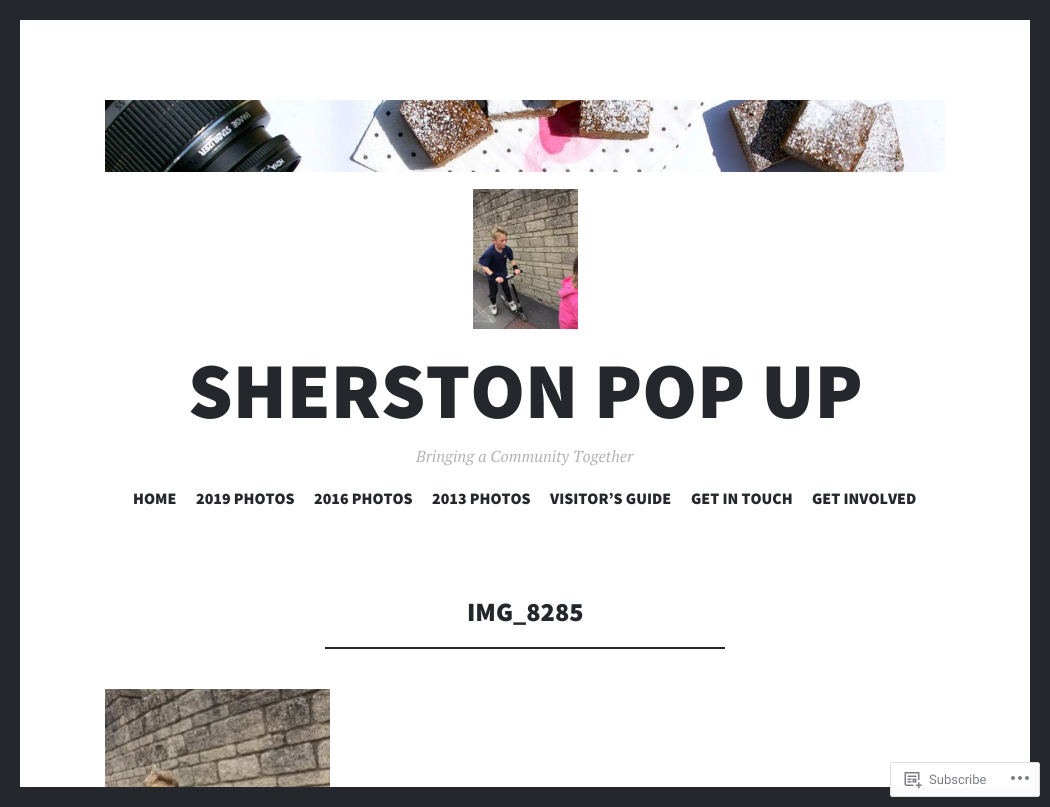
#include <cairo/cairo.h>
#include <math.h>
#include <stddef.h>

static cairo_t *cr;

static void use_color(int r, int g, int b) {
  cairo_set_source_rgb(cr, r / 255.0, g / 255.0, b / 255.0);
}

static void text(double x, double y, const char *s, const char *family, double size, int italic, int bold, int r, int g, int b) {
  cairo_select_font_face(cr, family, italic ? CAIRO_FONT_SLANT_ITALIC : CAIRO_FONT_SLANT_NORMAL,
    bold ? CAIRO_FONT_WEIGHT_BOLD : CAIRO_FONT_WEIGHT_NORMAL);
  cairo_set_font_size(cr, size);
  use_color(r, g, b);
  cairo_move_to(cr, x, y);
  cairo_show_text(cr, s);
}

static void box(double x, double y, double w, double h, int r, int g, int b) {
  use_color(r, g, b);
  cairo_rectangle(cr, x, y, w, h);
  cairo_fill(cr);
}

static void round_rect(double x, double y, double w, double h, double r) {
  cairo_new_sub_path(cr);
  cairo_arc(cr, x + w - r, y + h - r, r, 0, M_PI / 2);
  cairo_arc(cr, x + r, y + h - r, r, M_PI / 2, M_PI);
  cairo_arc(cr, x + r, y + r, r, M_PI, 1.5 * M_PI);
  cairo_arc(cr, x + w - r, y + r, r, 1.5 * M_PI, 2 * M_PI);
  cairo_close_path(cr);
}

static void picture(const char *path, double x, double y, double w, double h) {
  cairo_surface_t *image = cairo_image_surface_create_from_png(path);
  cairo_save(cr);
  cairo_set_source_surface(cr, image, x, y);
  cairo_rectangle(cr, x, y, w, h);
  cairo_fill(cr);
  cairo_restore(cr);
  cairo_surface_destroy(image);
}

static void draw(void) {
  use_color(36, 40, 45);
  cairo_paint(cr);
  box(20, 20, 1010, 767, 255, 255, 255);
  picture("img_01.png", 105, 100, 840, 72);
  picture("img_02.png", 473, 189, 105, 140);
  box(325, 647, 400, 2, 36, 40, 45);
  picture("img_03.png", 105, 689, 225, 98);
  cairo_set_source_rgba(cr, 1, 1, 1, 0.98);
  round_rect(890, 762, 150, 35, 3);
  cairo_fill(cr);
  round_rect(890.5, 762.5, 149, 34, 2.5);
  cairo_set_source_rgba(cr, 0.863, 0.863, 0.871, 0.98);
  cairo_set_line_width(cr, 1);
  cairo_stroke(cr);
  picture("img_04.png", 904, 772, 18, 17);
  picture("img_05.png", 1011, 776, 18, 4);
  text(188, 418, "SHERSTON POP UP", "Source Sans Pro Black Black", 79.25, 0, 0, 36, 40, 45);
  text(416, 462, "Bringing a Community Together", "PT Serif", 16, 1, 0, 177, 178, 179);
  text(133, 504, "HOME", "Source Sans Pro Black Black", 16, 0, 0, 36, 40, 45);
  text(196, 504, "2019 PHOTOS", "Source Sans Pro Black Black", 16, 0, 0, 36, 40, 45);
  text(314, 504, "2016 PHOTOS", "Source Sans Pro Black Black", 16, 0, 0, 36, 40, 45);
  text(432, 504, "2013 PHOTOS", "Source Sans Pro Black Black", 16, 0, 0, 36, 40, 45);
  text(550, 504, "VISITOR’S GUIDE", "Source Sans Pro Black Black", 16, 0, 0, 36, 40, 45);
  text(691, 504, "GET IN TOUCH", "Source Sans Pro Black Black", 16, 0, 0, 36, 40, 45);
  text(812, 504, "GET INVOLVED", "Source Sans Pro Black Black", 16, 0, 0, 36, 40, 45);
  text(467, 621, "IMG_8285", "Source Sans Pro Black Black", 26.5, 0, 0, 36, 40, 45);
  text(929, 784, "Subscribe", "Roboto", 13, 0, 0, 123, 127, 133);
}

int main(void) {
  cairo_surface_t *surface = cairo_image_surface_create(CAIRO_FORMAT_RGB24, 1050, 807);
  cr = cairo_create(surface);
  cairo_font_options_t *options = cairo_font_options_create();
  cairo_font_options_set_hint_metrics(options, CAIRO_HINT_METRICS_OFF);
  cairo_font_options_set_hint_style(options, CAIRO_HINT_STYLE_NONE);
  cairo_set_font_options(cr, options);
  cairo_set_miter_limit(cr, 4);
  draw();
  cairo_surface_write_to_png(surface, "out.png");
  cairo_font_options_destroy(options);
  cairo_destroy(cr);
  cairo_surface_destroy(surface);
  return 0;
}
